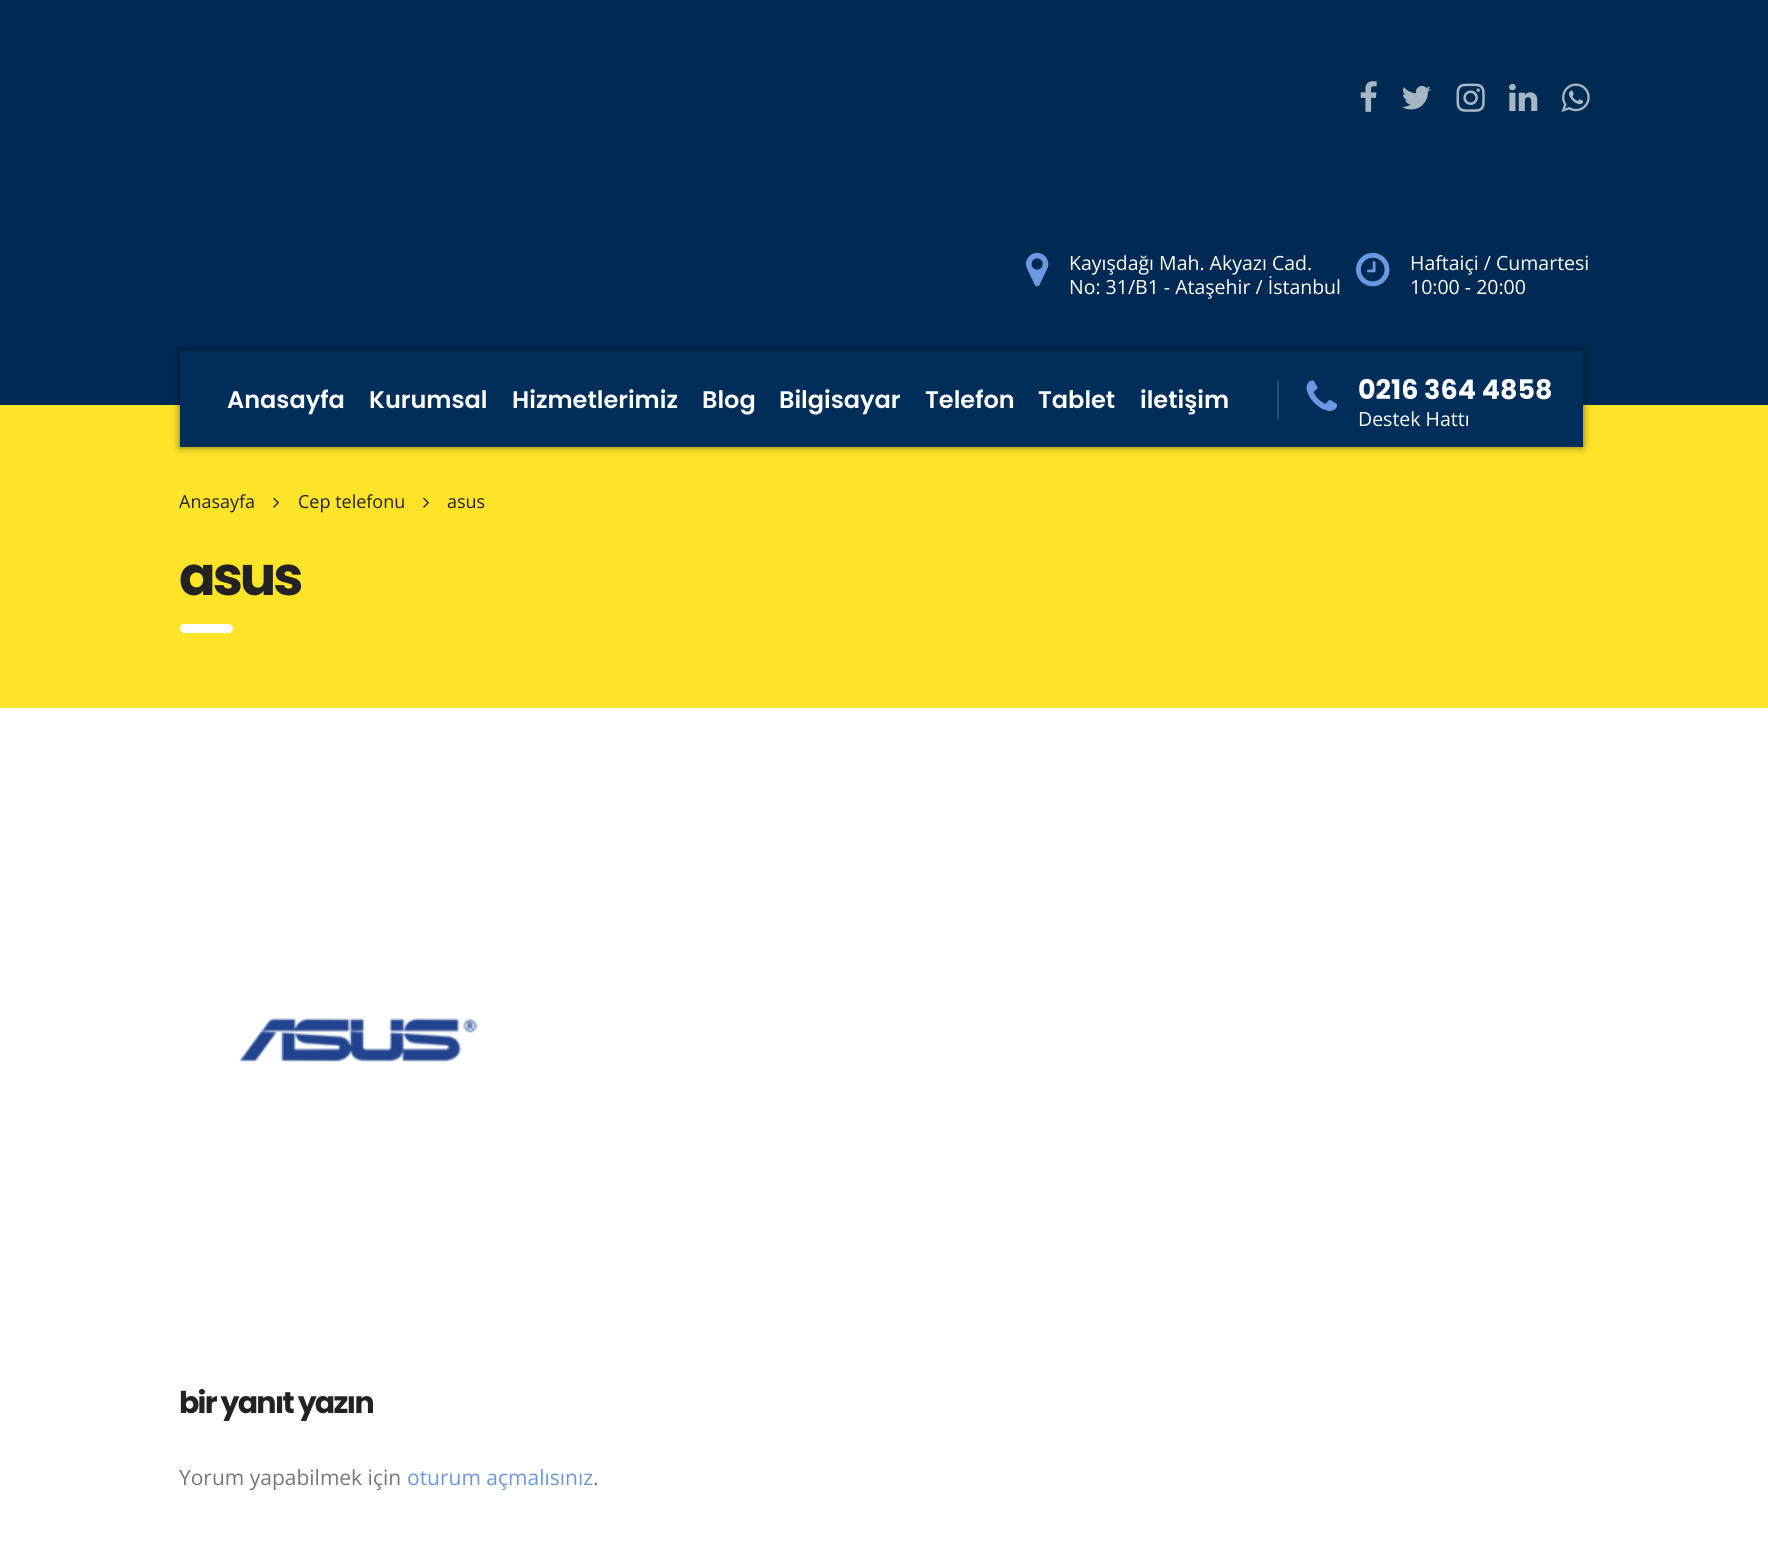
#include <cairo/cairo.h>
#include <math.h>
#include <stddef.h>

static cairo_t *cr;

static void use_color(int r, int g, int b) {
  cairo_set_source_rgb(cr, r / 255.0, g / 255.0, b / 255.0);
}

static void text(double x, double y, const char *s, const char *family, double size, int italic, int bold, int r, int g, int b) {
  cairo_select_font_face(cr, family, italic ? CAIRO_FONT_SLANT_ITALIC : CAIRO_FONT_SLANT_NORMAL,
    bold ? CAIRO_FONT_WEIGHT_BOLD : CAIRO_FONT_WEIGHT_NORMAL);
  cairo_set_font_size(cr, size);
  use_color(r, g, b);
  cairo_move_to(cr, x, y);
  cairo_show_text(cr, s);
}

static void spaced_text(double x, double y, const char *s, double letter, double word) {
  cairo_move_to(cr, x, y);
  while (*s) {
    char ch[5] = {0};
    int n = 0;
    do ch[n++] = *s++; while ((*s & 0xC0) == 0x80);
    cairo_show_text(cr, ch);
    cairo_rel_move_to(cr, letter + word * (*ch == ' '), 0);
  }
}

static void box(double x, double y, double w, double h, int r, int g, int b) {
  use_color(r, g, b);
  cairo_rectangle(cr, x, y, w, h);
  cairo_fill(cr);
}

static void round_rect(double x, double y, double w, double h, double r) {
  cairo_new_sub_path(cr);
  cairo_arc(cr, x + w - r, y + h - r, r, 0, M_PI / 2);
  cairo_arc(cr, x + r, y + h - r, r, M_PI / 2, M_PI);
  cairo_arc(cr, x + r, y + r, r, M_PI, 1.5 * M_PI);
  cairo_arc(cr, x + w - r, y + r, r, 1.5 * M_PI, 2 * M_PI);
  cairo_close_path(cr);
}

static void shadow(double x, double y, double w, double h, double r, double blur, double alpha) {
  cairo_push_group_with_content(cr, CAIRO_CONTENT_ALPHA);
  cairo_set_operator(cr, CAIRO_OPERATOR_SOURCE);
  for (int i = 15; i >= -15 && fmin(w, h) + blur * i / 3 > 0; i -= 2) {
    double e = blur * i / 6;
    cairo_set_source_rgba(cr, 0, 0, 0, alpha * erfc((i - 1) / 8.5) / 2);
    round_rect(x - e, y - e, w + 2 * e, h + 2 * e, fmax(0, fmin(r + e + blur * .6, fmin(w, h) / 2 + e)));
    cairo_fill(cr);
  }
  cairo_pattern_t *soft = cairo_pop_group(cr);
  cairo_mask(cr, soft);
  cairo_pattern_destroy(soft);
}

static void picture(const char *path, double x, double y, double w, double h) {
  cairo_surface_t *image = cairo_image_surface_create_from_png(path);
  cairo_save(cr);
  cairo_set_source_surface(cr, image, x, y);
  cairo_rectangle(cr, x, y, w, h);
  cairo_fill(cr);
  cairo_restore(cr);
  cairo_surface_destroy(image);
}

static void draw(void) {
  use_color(255, 255, 255);
  cairo_paint(cr);
  box(0, 0, 1768, 405, 0, 41, 83);
  picture("img_01.png", 1360, 81, 17, 31);
  picture("img_02.png", 1402, 85, 29, 25);
  picture("img_03.png", 1456, 83, 29, 29);
  picture("img_04.png", 1509, 84, 29, 27);
  picture("img_05.png", 1561, 83, 29, 29);
  picture("img_06.png", 1026, 252, 23, 35);
  picture("img_07.png", 1356, 252, 34, 35);
  box(0, 405, 1768, 303, 253, 228, 40);
  use_color(0, 0, 0);
  shadow(180, 351, 1403, 96, 0, 4, 0.52);
  box(180, 351, 1403, 96, 0, 46, 91);
  box(1277, 380, 2, 40, 38, 77, 116);
  picture("img_08.png", 1306, 380, 32, 31);
  picture("img_09.png", 273, 497, 6, 11);
  picture("img_09.png", 423, 497, 6, 11);
  use_color(255, 255, 255);
  round_rect(180, 624, 53, 9, 4.5);
  cairo_fill(cr);
  picture("img_10.png", 239, 1018, 239, 45);
  text(1069, 270, "Kayışdağı Mah. Akyazı Cad.", "Open Sans", 19.5, 0, 0, 255, 255, 255);
  text(1069, 294, "No: 31/B1 - Ataşehir / İstanbul", "Open Sans", 19.5, 0, 0, 255, 255, 255);
  text(1410, 270, "Haftaiçi / Cumartesi", "Open Sans", 19.5, 0, 0, 255, 255, 255);
  text(1410, 294, "10:00 - 20:00", "Open Sans", 19.5, 0, 0, 255, 255, 255);
  text(227, 408, "Anasayfa", "Poppins SemiBold", 24, 0, 0, 255, 255, 255);
  text(369, 408, "Kurumsal", "Poppins SemiBold", 24, 0, 0, 255, 255, 255);
  text(512, 408, "Hizmetlerimiz", "Poppins SemiBold", 24, 0, 0, 255, 255, 255);
  text(702, 408, "Blog", "Poppins SemiBold", 24, 0, 0, 255, 255, 255);
  text(779, 408, "Bilgisayar", "Poppins SemiBold", 24, 0, 0, 255, 255, 255);
  text(925, 408, "Telefon", "Poppins SemiBold", 24, 0, 0, 255, 255, 255);
  text(1038, 408, "Tablet", "Poppins SemiBold", 24, 0, 0, 255, 255, 255);
  text(1140, 408, "iletişim", "Poppins SemiBold", 24, 0, 0, 255, 255, 255);
  text(1358, 399, "0216 364 4858", "Poppins", 27, 0, 1, 255, 255, 255);
  text(1358, 426, "Destek Hattı", "Open Sans", 19.5, 0, 0, 255, 255, 255);
  text(179, 508, "Anasayfa", "Open Sans", 18, 0, 0, 34, 34, 34);
  text(298, 508, "Cep telefonu", "Open Sans", 18, 0, 0, 34, 34, 34);
  text(447, 508, "asus", "Open Sans", 18, 0, 0, 34, 34, 34);
  cairo_select_font_face(cr, "Poppins", CAIRO_FONT_SLANT_NORMAL, CAIRO_FONT_WEIGHT_BOLD);
  cairo_set_font_size(cr, 54);
  spaced_text(179, 595, "asus", -3, 0);
  cairo_set_font_size(cr, 30);
  spaced_text(179, 1413, "bir yanıt yazın", -1.75, 0);
  text(179, 1485, "Yorum yapabilmek için", "Open Sans", 21, 0, 0, 119, 119, 119);
  text(407, 1485, "oturum açmalısınız", "Open Sans", 21, 0, 0, 108, 152, 225);
  text(593, 1485, ".", "Open Sans", 21, 0, 0, 119, 119, 119);
}

int main(void) {
  cairo_surface_t *surface = cairo_image_surface_create(CAIRO_FORMAT_RGB24, 1768, 1545);
  cr = cairo_create(surface);
  cairo_font_options_t *options = cairo_font_options_create();
  cairo_font_options_set_hint_metrics(options, CAIRO_HINT_METRICS_OFF);
  cairo_font_options_set_hint_style(options, CAIRO_HINT_STYLE_NONE);
  cairo_set_font_options(cr, options);
  cairo_set_miter_limit(cr, 4);
  draw();
  cairo_surface_write_to_png(surface, "out.png");
  cairo_font_options_destroy(options);
  cairo_destroy(cr);
  cairo_surface_destroy(surface);
  return 0;
}
